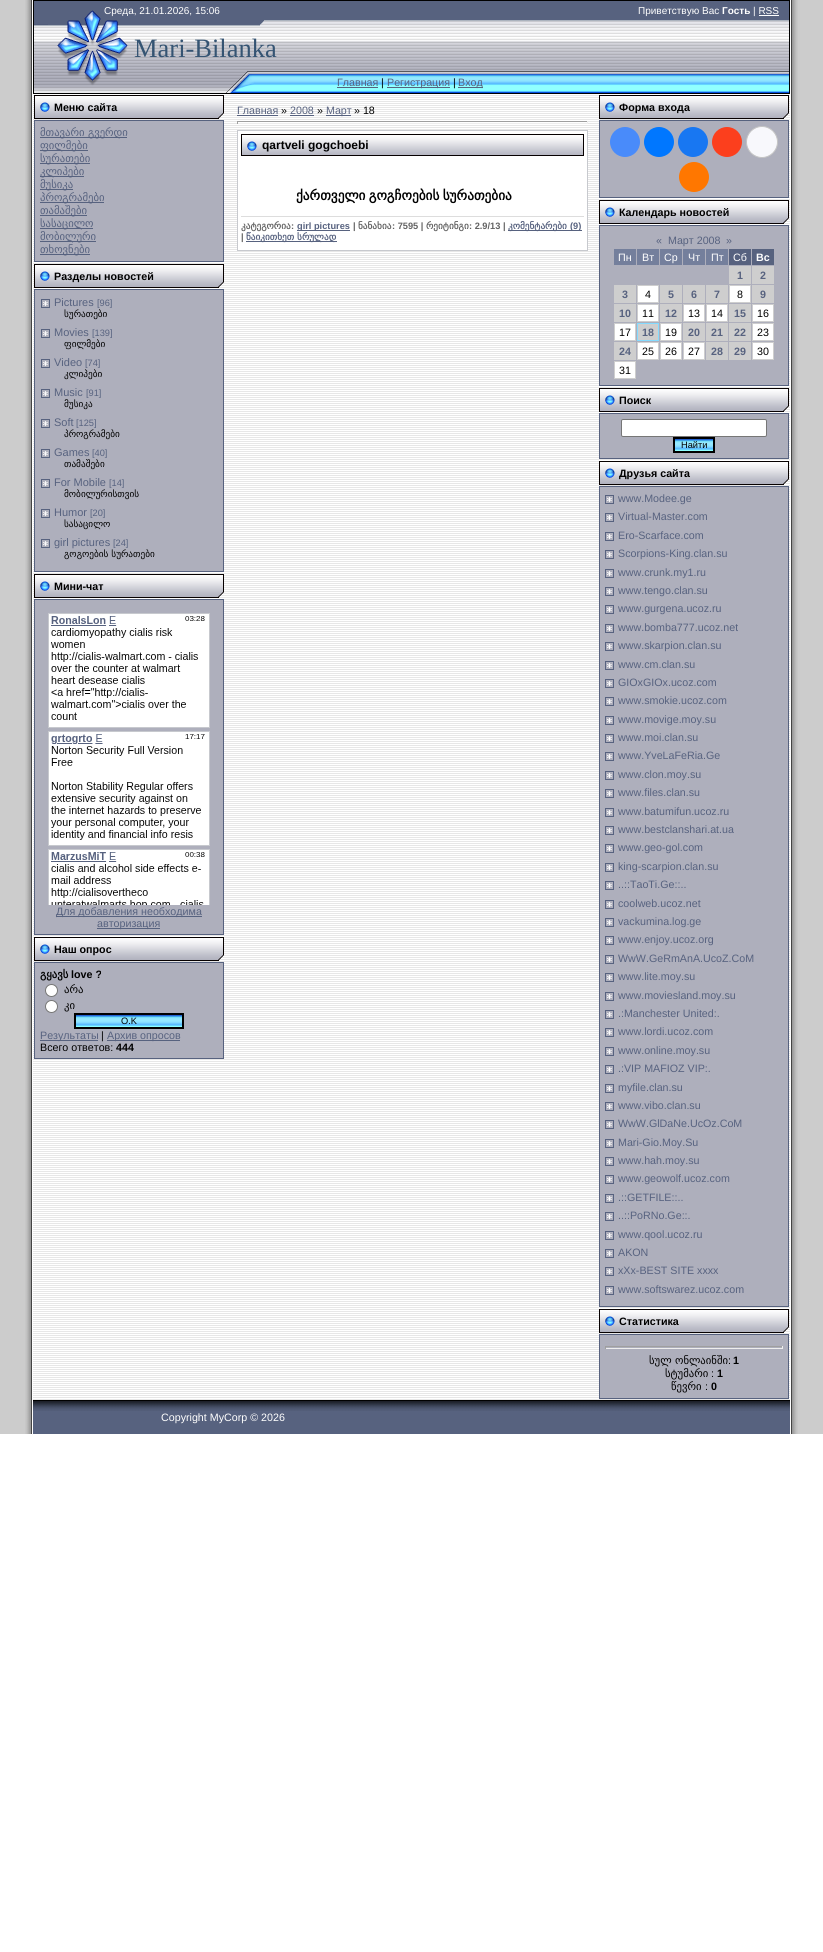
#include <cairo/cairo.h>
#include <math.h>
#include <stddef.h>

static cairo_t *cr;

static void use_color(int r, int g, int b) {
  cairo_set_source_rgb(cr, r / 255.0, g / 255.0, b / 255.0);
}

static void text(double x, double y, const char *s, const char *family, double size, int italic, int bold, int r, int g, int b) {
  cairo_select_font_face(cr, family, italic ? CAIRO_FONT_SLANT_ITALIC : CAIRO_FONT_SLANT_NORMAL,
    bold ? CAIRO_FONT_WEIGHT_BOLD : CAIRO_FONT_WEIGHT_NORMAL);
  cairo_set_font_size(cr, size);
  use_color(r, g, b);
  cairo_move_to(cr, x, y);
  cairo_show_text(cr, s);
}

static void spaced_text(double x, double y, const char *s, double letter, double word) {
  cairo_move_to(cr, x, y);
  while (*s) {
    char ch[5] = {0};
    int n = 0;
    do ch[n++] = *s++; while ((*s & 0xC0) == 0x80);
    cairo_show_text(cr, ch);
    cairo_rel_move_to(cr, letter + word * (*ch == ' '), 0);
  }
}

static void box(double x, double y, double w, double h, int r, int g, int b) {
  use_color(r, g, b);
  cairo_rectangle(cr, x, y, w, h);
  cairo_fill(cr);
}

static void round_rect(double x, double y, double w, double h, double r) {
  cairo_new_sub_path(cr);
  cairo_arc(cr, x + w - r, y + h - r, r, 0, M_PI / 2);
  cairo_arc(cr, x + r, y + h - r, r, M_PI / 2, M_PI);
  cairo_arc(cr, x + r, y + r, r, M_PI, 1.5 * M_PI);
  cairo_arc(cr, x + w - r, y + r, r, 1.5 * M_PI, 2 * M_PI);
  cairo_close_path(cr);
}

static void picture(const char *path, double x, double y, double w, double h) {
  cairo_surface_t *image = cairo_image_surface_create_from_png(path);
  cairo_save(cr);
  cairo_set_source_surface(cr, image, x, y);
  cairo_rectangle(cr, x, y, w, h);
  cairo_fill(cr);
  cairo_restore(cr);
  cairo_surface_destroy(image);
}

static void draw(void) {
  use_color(255, 255, 255);
  cairo_paint(cr);
  box(0, 0, 25, 1434, 204, 204, 204);
  picture("img_01.png", 25, 0, 8, 1434);
  picture("img_02.png", 34, 1, 755, 92);
  cairo_rectangle(cr, 33.5, 0.5, 756, 93);
  use_color(0, 0, 0);
  cairo_set_line_width(cr, 1);
  cairo_stroke(cr);
  picture("img_03.png", 34, 10, 230, 15);
  box(759, 15, 20, 1, 255, 255, 255);
  picture("img_04.png", 34, 25, 226, 46);
  picture("img_05.png", 34, 71, 220, 22);
  box(337, 87, 41, 1, 87, 98, 127);
  box(387, 87, 63, 1, 87, 98, 127);
  box(458, 87, 25, 1, 87, 98, 127);
  picture("img_06.png", 33, 95, 757, 1305);
  picture("img_07.png", 34, 95, 190, 24);
  use_color(174, 175, 188);
  cairo_rectangle(cr, 34.5, 120.5, 189, 141);
  cairo_fill_preserve(cr);
  use_color(87, 98, 127);
  cairo_stroke(cr);
  box(40, 137, 87, 1, 87, 98, 127);
  box(40, 150, 48, 1, 87, 98, 127);
  box(40, 163, 50, 1, 87, 98, 127);
  box(40, 176, 44, 1, 87, 98, 127);
  box(40, 189, 33, 1, 87, 98, 127);
  box(40, 202, 64, 1, 87, 98, 127);
  box(40, 215, 47, 1, 87, 98, 127);
  box(40, 228, 53, 1, 87, 98, 127);
  box(40, 241, 56, 1, 87, 98, 127);
  box(40, 254, 50, 1, 87, 98, 127);
  picture("img_08.png", 34, 264, 190, 24);
  use_color(174, 175, 188);
  cairo_rectangle(cr, 34.5, 289.5, 189, 282);
  cairo_fill_preserve(cr);
  use_color(87, 98, 127);
  cairo_stroke(cr);
  picture("img_09.png", 41, 299, 9, 9);
  picture("img_09.png", 41, 329, 9, 9);
  picture("img_09.png", 41, 359, 9, 9);
  picture("img_09.png", 41, 389, 9, 9);
  picture("img_09.png", 41, 419, 9, 9);
  picture("img_09.png", 41, 449, 9, 9);
  picture("img_09.png", 41, 479, 9, 9);
  picture("img_09.png", 41, 509, 9, 9);
  picture("img_09.png", 41, 539, 9, 9);
  picture("img_08.png", 34, 574, 190, 24);
  use_color(174, 175, 188);
  cairo_rectangle(cr, 34.5, 599.5, 189, 335);
  cairo_fill_preserve(cr);
  use_color(87, 98, 127);
  cairo_stroke(cr);
  picture("img_10.png", 48, 613, 162, 292);
  box(56, 916, 146, 1, 87, 98, 127);
  box(97, 928, 63, 1, 87, 98, 127);
  picture("img_07.png", 34, 937, 190, 24);
  use_color(174, 175, 188);
  cairo_rectangle(cr, 34.5, 962.5, 189, 96);
  cairo_fill_preserve(cr);
  use_color(87, 98, 127);
  cairo_stroke(cr);
  use_color(255, 255, 255);
  cairo_arc(cr, 51.5, 990.5, 6, 0, 2 * M_PI);
  cairo_fill_preserve(cr);
  use_color(118, 118, 118);
  cairo_stroke(cr);
  use_color(255, 255, 255);
  cairo_arc(cr, 51.5, 1006.5, 6, 0, 2 * M_PI);
  cairo_fill_preserve(cr);
  use_color(118, 118, 118);
  cairo_stroke(cr);
  picture("img_11.png", 76, 1015, 106, 12);
  cairo_rectangle(cr, 75, 1014, 108, 14);
  use_color(0, 0, 0);
  cairo_set_line_width(cr, 2);
  cairo_stroke(cr);
  box(40, 1040, 58, 1, 87, 98, 127);
  box(107, 1040, 73, 1, 87, 98, 127);
  box(237, 115, 41, 1, 87, 98, 127);
  box(290, 115, 24, 1, 87, 98, 127);
  box(326, 115, 25, 1, 87, 98, 127);
  box(237, 121, 351, 1, 159, 159, 159);
  box(587, 121, 1, 3, 238, 238, 238);
  box(237, 123, 351, 1, 238, 238, 238);
  box(237, 121, 1, 3, 159, 159, 159);
  use_color(255, 255, 255);
  cairo_rectangle(cr, 237.5, 130.5, 350, 120);
  cairo_fill_preserve(cr);
  use_color(199, 201, 206);
  cairo_set_line_width(cr, 1);
  cairo_stroke(cr);
  picture("img_12.png", 242, 135, 341, 20);
  cairo_rectangle(cr, 241.5, 134.5, 342, 21);
  use_color(6, 0, 0);
  cairo_stroke(cr);
  box(241, 216, 343, 1, 221, 221, 221);
  box(297, 230, 53, 1, 87, 98, 127);
  box(508, 230, 74, 1, 87, 98, 127);
  box(246, 241, 91, 1, 87, 98, 127);
  picture("img_07.png", 599, 95, 190, 24);
  use_color(174, 175, 188);
  cairo_rectangle(cr, 599.5, 120.5, 189, 77);
  cairo_fill_preserve(cr);
  use_color(87, 98, 127);
  cairo_stroke(cr);
  use_color(73, 139, 250);
  cairo_arc(cr, 625, 142, 15, 0, 2 * M_PI);
  cairo_fill(cr);
  use_color(0, 119, 255);
  cairo_arc(cr, 659, 142, 15, 0, 2 * M_PI);
  cairo_fill(cr);
  use_color(24, 119, 242);
  cairo_arc(cr, 693, 142, 15, 0, 2 * M_PI);
  cairo_fill(cr);
  use_color(252, 63, 29);
  cairo_arc(cr, 727, 142, 15, 0, 2 * M_PI);
  cairo_fill(cr);
  use_color(248, 248, 252);
  cairo_arc(cr, 762, 142, 15.5, 0, 2 * M_PI);
  cairo_fill_preserve(cr);
  use_color(196, 196, 196);
  cairo_stroke(cr);
  use_color(255, 119, 0);
  cairo_arc(cr, 694, 177, 15, 0, 2 * M_PI);
  cairo_fill(cr);
  picture("img_08.png", 599, 200, 190, 24);
  use_color(174, 175, 188);
  cairo_rectangle(cr, 599.5, 225.5, 189, 160);
  cairo_fill_preserve(cr);
  use_color(87, 98, 127);
  cairo_stroke(cr);
  box(614, 249, 22, 16, 116, 127, 156);
  box(637, 249, 22, 16, 116, 127, 156);
  box(660, 249, 22, 16, 116, 127, 156);
  box(683, 249, 22, 16, 116, 127, 156);
  box(706, 249, 22, 16, 116, 127, 156);
  box(729, 249, 22, 16, 87, 98, 127);
  box(752, 249, 22, 16, 87, 98, 127);
  box(729, 266, 22, 18, 206, 206, 206);
  box(752, 266, 22, 18, 206, 206, 206);
  box(614, 285, 22, 18, 206, 206, 206);
  use_color(255, 255, 255);
  cairo_rectangle(cr, 637.5, 285.5, 21, 17);
  cairo_fill_preserve(cr);
  use_color(206, 206, 206);
  cairo_stroke(cr);
  box(660, 285, 22, 18, 206, 206, 206);
  box(683, 285, 22, 18, 206, 206, 206);
  box(706, 285, 22, 18, 206, 206, 206);
  use_color(255, 255, 255);
  cairo_rectangle(cr, 729.5, 285.5, 21, 17);
  cairo_fill_preserve(cr);
  use_color(206, 206, 206);
  cairo_stroke(cr);
  box(752, 285, 22, 18, 206, 206, 206);
  box(614, 304, 22, 18, 206, 206, 206);
  use_color(255, 255, 255);
  cairo_rectangle(cr, 637.5, 304.5, 21, 17);
  cairo_fill_preserve(cr);
  use_color(206, 206, 206);
  cairo_stroke(cr);
  box(660, 304, 22, 18, 206, 206, 206);
  use_color(255, 255, 255);
  cairo_rectangle(cr, 683.5, 304.5, 21, 17);
  cairo_fill_preserve(cr);
  use_color(206, 206, 206);
  cairo_stroke(cr);
  use_color(255, 255, 255);
  cairo_rectangle(cr, 706.5, 304.5, 21, 17);
  cairo_fill_preserve(cr);
  use_color(206, 206, 206);
  cairo_stroke(cr);
  box(729, 304, 22, 18, 206, 206, 206);
  use_color(255, 255, 255);
  cairo_rectangle(cr, 752.5, 304.5, 21, 17);
  cairo_fill_preserve(cr);
  use_color(206, 206, 206);
  cairo_stroke(cr);
  use_color(255, 255, 255);
  cairo_rectangle(cr, 614.5, 323.5, 21, 17);
  cairo_fill_preserve(cr);
  use_color(206, 206, 206);
  cairo_stroke(cr);
  cairo_rectangle(cr, 637.5, 323.5, 21, 17);
  cairo_fill_preserve(cr);
  use_color(132, 219, 255);
  cairo_stroke(cr);
  use_color(255, 255, 255);
  cairo_rectangle(cr, 660.5, 323.5, 21, 17);
  cairo_fill_preserve(cr);
  use_color(206, 206, 206);
  cairo_stroke(cr);
  box(683, 323, 22, 18, 206, 206, 206);
  box(706, 323, 22, 18, 206, 206, 206);
  box(729, 323, 22, 18, 206, 206, 206);
  use_color(255, 255, 255);
  cairo_rectangle(cr, 752.5, 323.5, 21, 17);
  cairo_fill_preserve(cr);
  use_color(206, 206, 206);
  cairo_stroke(cr);
  box(614, 342, 22, 18, 206, 206, 206);
  use_color(255, 255, 255);
  cairo_rectangle(cr, 637.5, 342.5, 21, 17);
  cairo_fill_preserve(cr);
  use_color(206, 206, 206);
  cairo_stroke(cr);
  use_color(255, 255, 255);
  cairo_rectangle(cr, 660.5, 342.5, 21, 17);
  cairo_fill_preserve(cr);
  use_color(206, 206, 206);
  cairo_stroke(cr);
  use_color(255, 255, 255);
  cairo_rectangle(cr, 683.5, 342.5, 21, 17);
  cairo_fill_preserve(cr);
  use_color(206, 206, 206);
  cairo_stroke(cr);
  box(706, 342, 22, 18, 206, 206, 206);
  box(729, 342, 22, 18, 206, 206, 206);
  use_color(255, 255, 255);
  cairo_rectangle(cr, 752.5, 342.5, 21, 17);
  cairo_fill_preserve(cr);
  use_color(206, 206, 206);
  cairo_stroke(cr);
  use_color(255, 255, 255);
  cairo_rectangle(cr, 614.5, 361.5, 21, 17);
  cairo_fill_preserve(cr);
  use_color(206, 206, 206);
  cairo_stroke(cr);
  picture("img_08.png", 599, 388, 190, 24);
  use_color(174, 175, 188);
  cairo_rectangle(cr, 599.5, 413.5, 189, 45);
  cairo_fill_preserve(cr);
  use_color(87, 98, 127);
  cairo_stroke(cr);
  use_color(255, 255, 255);
  round_rect(621.5, 419.5, 145, 17, 1.5);
  cairo_fill_preserve(cr);
  use_color(118, 118, 118);
  cairo_stroke(cr);
  picture("img_13.png", 675, 439, 38, 12);
  cairo_rectangle(cr, 674, 438, 40, 14);
  use_color(0, 0, 0);
  cairo_set_line_width(cr, 2);
  cairo_stroke(cr);
  picture("img_07.png", 599, 461, 190, 24);
  use_color(174, 175, 188);
  cairo_rectangle(cr, 599.5, 486.5, 189, 820);
  cairo_fill_preserve(cr);
  use_color(87, 98, 127);
  cairo_set_line_width(cr, 1);
  cairo_stroke(cr);
  picture("img_09.png", 605, 495, 9, 9);
  picture("img_09.png", 605, 513, 9, 9);
  picture("img_09.png", 605, 532, 9, 9);
  picture("img_09.png", 605, 550, 9, 9);
  picture("img_09.png", 605, 569, 9, 9);
  picture("img_09.png", 605, 587, 9, 9);
  picture("img_09.png", 605, 605, 9, 9);
  picture("img_09.png", 605, 624, 9, 9);
  picture("img_09.png", 605, 642, 9, 9);
  picture("img_09.png", 605, 661, 9, 9);
  picture("img_09.png", 605, 679, 9, 9);
  picture("img_09.png", 605, 697, 9, 9);
  picture("img_09.png", 605, 716, 9, 9);
  picture("img_09.png", 605, 734, 9, 9);
  picture("img_09.png", 605, 752, 9, 9);
  picture("img_09.png", 605, 771, 9, 9);
  picture("img_09.png", 605, 789, 9, 9);
  picture("img_09.png", 605, 808, 9, 9);
  picture("img_09.png", 605, 826, 9, 9);
  picture("img_09.png", 605, 844, 9, 9);
  picture("img_09.png", 605, 863, 9, 9);
  picture("img_09.png", 605, 881, 9, 9);
  picture("img_09.png", 605, 900, 9, 9);
  picture("img_09.png", 605, 918, 9, 9);
  picture("img_09.png", 605, 936, 9, 9);
  picture("img_09.png", 605, 955, 9, 9);
  picture("img_09.png", 605, 973, 9, 9);
  picture("img_09.png", 605, 992, 9, 9);
  picture("img_09.png", 605, 1010, 9, 9);
  picture("img_09.png", 605, 1028, 9, 9);
  picture("img_09.png", 605, 1047, 9, 9);
  picture("img_09.png", 605, 1065, 9, 9);
  picture("img_09.png", 605, 1084, 9, 9);
  picture("img_09.png", 605, 1102, 9, 9);
  picture("img_09.png", 605, 1120, 9, 9);
  picture("img_09.png", 605, 1139, 9, 9);
  picture("img_09.png", 605, 1157, 9, 9);
  picture("img_09.png", 605, 1175, 9, 9);
  picture("img_09.png", 605, 1194, 9, 9);
  picture("img_09.png", 605, 1212, 9, 9);
  picture("img_09.png", 605, 1231, 9, 9);
  picture("img_09.png", 605, 1249, 9, 9);
  picture("img_09.png", 605, 1267, 9, 9);
  picture("img_09.png", 605, 1286, 9, 9);
  picture("img_07.png", 599, 1309, 190, 24);
  use_color(174, 175, 188);
  cairo_rectangle(cr, 599.5, 1334.5, 189, 64);
  cairo_fill_preserve(cr);
  use_color(87, 98, 127);
  cairo_stroke(cr);
  box(605, 1346, 178, 1, 159, 159, 159);
  box(782, 1346, 1, 3, 238, 238, 238);
  box(605, 1348, 178, 1, 238, 238, 238);
  box(605, 1346, 1, 3, 159, 159, 159);
  box(33, 1411, 757, 23, 87, 98, 127);
  picture("img_14.png", 33, 1401, 757, 10);
  box(33, 1400, 757, 1, 0, 0, 0);
  box(798, 0, 25, 1434, 204, 204, 204);
  picture("img_15.png", 790, 0, 8, 1434);
  text(104, 14, "Среда, 21.01.2026, 15:06", "Liberation Sans", 10, 0, 0, 255, 255, 255);
  text(638, 14, "Приветствую Вас", "Liberation Sans", 10, 0, 0, 255, 255, 255);
  text(722, 14, "Гость", "Liberation Sans", 10, 0, 1, 255, 255, 255);
  text(753, 14, "| RSS", "Liberation Sans", 10, 0, 0, 255, 255, 255);
  text(134, 57, "Mari-Bilanka", "Liberation Serif", 26.5, 0, 0, 53, 84, 115);
  text(337, 86, "Главная", "Liberation Sans", 10.7, 0, 0, 87, 98, 127);
  text(381, 86, "|", "Liberation Sans", 10.7, 0, 0, 0, 0, 0);
  text(387, 86, "Регистрация", "Liberation Sans", 10.7, 0, 0, 87, 98, 127);
  text(453, 86, "|", "Liberation Sans", 10.7, 0, 0, 0, 0, 0);
  text(458, 86, "Вход", "Liberation Sans", 10.7, 0, 0, 87, 98, 127);
  text(54, 111, "Меню сайта", "Liberation Sans", 10.7, 0, 1, 0, 0, 0);
  text(40, 136, "მთავარი გვერდი", "DejaVu Sans", 10.7, 0, 0, 87, 98, 127);
  text(40, 149, "ფილმები", "DejaVu Sans", 10.7, 0, 0, 87, 98, 127);
  text(40, 162, "სურათები", "DejaVu Sans", 10.7, 0, 0, 87, 98, 127);
  text(40, 175, "კლიპები", "DejaVu Sans", 10.7, 0, 0, 87, 98, 127);
  text(40, 188, "მუსიკა", "DejaVu Sans", 10.7, 0, 0, 87, 98, 127);
  text(40, 201, "პროგრამები", "DejaVu Sans", 10.7, 0, 0, 87, 98, 127);
  text(40, 214, "თამაშები", "DejaVu Sans", 10.7, 0, 0, 87, 98, 127);
  text(40, 227, "სასაცილო", "DejaVu Sans", 10.7, 0, 0, 87, 98, 127);
  text(40, 240, "მობილური", "DejaVu Sans", 10.7, 0, 0, 87, 98, 127);
  text(40, 253, "თხოვნები", "DejaVu Sans", 10.7, 0, 0, 87, 98, 127);
  text(54, 280, "Разделы новостей", "Liberation Sans", 10.7, 0, 1, 0, 0, 0);
  text(54, 306, "Pictures", "Liberation Sans", 11, 0, 0, 87, 98, 127);
  text(97, 306, "[96]", "Liberation Sans", 9.25, 0, 0, 87, 98, 127);
  text(64, 317, "სურათები", "DejaVu Sans", 9.25, 0, 0, 0, 0, 0);
  text(54, 336, "Movies", "Liberation Sans", 11, 0, 0, 87, 98, 127);
  text(92, 336, "[139]", "Liberation Sans", 9.25, 0, 0, 87, 98, 127);
  text(64, 347, "ფილმები", "DejaVu Sans", 9.25, 0, 0, 0, 0, 0);
  text(54, 366, "Video", "Liberation Sans", 11, 0, 0, 87, 98, 127);
  text(85, 366, "[74]", "Liberation Sans", 9.25, 0, 0, 87, 98, 127);
  text(64, 377, "კლიპები", "DejaVu Sans", 9.25, 0, 0, 0, 0, 0);
  text(54, 396, "Music", "Liberation Sans", 11, 0, 0, 87, 98, 127);
  text(86, 396, "[91]", "Liberation Sans", 9.25, 0, 0, 87, 98, 127);
  text(64, 407, "მუსიკა", "DejaVu Sans", 9.25, 0, 0, 0, 0, 0);
  text(54, 426, "Soft", "Liberation Sans", 11, 0, 0, 87, 98, 127);
  text(76, 426, "[125]", "Liberation Sans", 9.25, 0, 0, 87, 98, 127);
  text(64, 437, "პროგრამები", "DejaVu Sans", 9.25, 0, 0, 0, 0, 0);
  text(54, 456, "Games", "Liberation Sans", 11, 0, 0, 87, 98, 127);
  text(92, 456, "[40]", "Liberation Sans", 9.25, 0, 0, 87, 98, 127);
  text(64, 467, "თამაშები", "DejaVu Sans", 9.25, 0, 0, 0, 0, 0);
  text(54, 486, "For Mobile", "Liberation Sans", 11, 0, 0, 87, 98, 127);
  text(109, 486, "[14]", "Liberation Sans", 9.25, 0, 0, 87, 98, 127);
  text(64, 497, "მობილურისთვის", "DejaVu Sans", 9.25, 0, 0, 0, 0, 0);
  text(54, 516, "Humor", "Liberation Sans", 11, 0, 0, 87, 98, 127);
  text(90, 516, "[20]", "Liberation Sans", 9.25, 0, 0, 87, 98, 127);
  text(64, 527, "სასაცილო", "DejaVu Sans", 9.25, 0, 0, 0, 0, 0);
  text(54, 546, "girl pictures", "Liberation Sans", 11, 0, 0, 87, 98, 127);
  text(113, 546, "[24]", "Liberation Sans", 9.25, 0, 0, 87, 98, 127);
  text(64, 557, "გოგოების სურათები", "DejaVu Sans", 9.25, 0, 0, 0, 0, 0);
  text(54, 590, "Мини-чат", "Liberation Sans", 10.7, 0, 1, 0, 0, 0);
  text(56, 915, "Для добавления необходима", "Liberation Sans", 10.7, 0, 0, 87, 98, 127);
  text(97, 927, "авторизация", "Liberation Sans", 10.7, 0, 0, 87, 98, 127);
  text(54, 953, "Наш опрос", "Liberation Sans", 10.7, 0, 1, 0, 0, 0);
  text(40, 978, "გყავს", "DejaVu Sans", 10.7, 0, 1, 0, 0, 0);
  text(71, 978, "love ?", "Liberation Sans", 10.7, 0, 1, 0, 0, 0);
  text(64, 993, "არა", "DejaVu Sans", 10.7, 0, 0, 0, 0, 0);
  text(64, 1009, "კი", "DejaVu Sans", 10.7, 0, 0, 0, 0, 0);
  text(121, 1024, "O.K", "Liberation Sans", 9.25, 0, 0, 0, 0, 0);
  text(40, 1039, "Результаты", "Liberation Sans", 10.7, 0, 0, 87, 98, 127);
  text(101, 1039, "|", "Liberation Sans", 10.7, 0, 0, 0, 0, 0);
  text(107, 1039, "Архив опросов", "Liberation Sans", 10.7, 0, 0, 87, 98, 127);
  text(40, 1051, "Всего ответов:", "Liberation Sans", 10.7, 0, 0, 0, 0, 0);
  text(116, 1051, "444", "Liberation Sans", 10.7, 0, 1, 0, 0, 0);
  text(237, 114, "Главная", "Liberation Sans", 10.7, 0, 0, 87, 98, 127);
  text(281, 114, "»", "Liberation Sans", 10.7, 0, 0, 0, 0, 0);
  text(290, 114, "2008", "Liberation Sans", 10.7, 0, 0, 87, 98, 127);
  text(317, 114, "»", "Liberation Sans", 10.7, 0, 0, 0, 0, 0);
  text(326, 114, "Март", "Liberation Sans", 10.7, 0, 0, 87, 98, 127);
  text(354, 114, "» 18", "Liberation Sans", 10.7, 0, 0, 0, 0, 0);
  text(262, 149, "qartveli gogchoebi", "Liberation Sans", 12, 0, 1, 0, 0, 0);
  cairo_select_font_face(cr, "DejaVu Sans", CAIRO_FONT_SLANT_NORMAL, CAIRO_FONT_WEIGHT_BOLD);
  cairo_set_font_size(cr, 13.3);
  spaced_text(296, 200, "ქართველი გოგჩოების სურათებია", 0, -1);
  text(241, 229, "კატეგორია", "DejaVu Sans", 9.25, 0, 1, 99, 99, 99);
  text(291, 229, ":", "Liberation Sans", 9.25, 0, 1, 99, 99, 99);
  text(297, 229, "girl pictures", "Liberation Sans", 9.25, 0, 1, 87, 98, 127);
  text(353, 229, "|", "Liberation Sans", 9.25, 0, 1, 99, 99, 99);
  text(358, 229, "ნანახია", "DejaVu Sans", 9.25, 0, 1, 99, 99, 99);
  text(392, 229, ": 7595 |", "Liberation Sans", 9.25, 0, 1, 99, 99, 99);
  text(426, 229, "რეიტინგი", "DejaVu Sans", 9.25, 0, 1, 99, 99, 99);
  text(469, 229, ": 2.9/13 |", "Liberation Sans", 9.25, 0, 1, 99, 99, 99);
  text(508, 229, "კომენტარები", "DejaVu Sans", 9.25, 0, 1, 87, 98, 127);
  text(570, 229, "(9)", "Liberation Sans", 9.25, 0, 1, 87, 98, 127);
  text(241, 240, "|", "Liberation Sans", 9.25, 0, 1, 99, 99, 99);
  text(246, 240, "წაიკითხეთ სრულად", "DejaVu Sans", 9.25, 0, 1, 87, 98, 127);
  text(619, 111, "Форма входа", "Liberation Sans", 10.7, 0, 1, 0, 0, 0);
  text(619, 216, "Календарь новостей", "Liberation Sans", 10.7, 0, 1, 0, 0, 0);
  text(656, 244, "«", "Liberation Sans", 10.7, 0, 0, 87, 98, 127);
  text(668, 244, "Март 2008", "Liberation Sans", 10.7, 0, 0, 87, 98, 127);
  text(726, 244, "»", "Liberation Sans", 10.7, 0, 0, 87, 98, 127);
  text(618, 261, "Пн", "Liberation Sans", 10.7, 0, 0, 255, 255, 255);
  text(642, 261, "Вт", "Liberation Sans", 10.7, 0, 0, 255, 255, 255);
  text(664, 261, "Ср", "Liberation Sans", 10.7, 0, 0, 255, 255, 255);
  text(688, 261, "Чт", "Liberation Sans", 10.7, 0, 0, 255, 255, 255);
  text(711, 261, "Пт", "Liberation Sans", 10.7, 0, 0, 255, 255, 255);
  text(733, 261, "Сб", "Liberation Sans", 10.7, 0, 0, 255, 255, 255);
  text(756, 261, "Вс", "Liberation Sans", 10.7, 0, 1, 255, 255, 255);
  text(737, 279, "1", "Liberation Sans", 10.7, 0, 1, 87, 98, 127);
  text(760, 279, "2", "Liberation Sans", 10.7, 0, 1, 87, 98, 127);
  text(622, 298, "3", "Liberation Sans", 10.7, 0, 1, 87, 98, 127);
  text(645, 298, "4", "Liberation Sans", 10.7, 0, 0, 0, 0, 0);
  text(668, 298, "5", "Liberation Sans", 10.7, 0, 1, 87, 98, 127);
  text(691, 298, "6", "Liberation Sans", 10.7, 0, 1, 87, 98, 127);
  text(714, 298, "7", "Liberation Sans", 10.7, 0, 1, 87, 98, 127);
  text(737, 298, "8", "Liberation Sans", 10.7, 0, 0, 0, 0, 0);
  text(760, 298, "9", "Liberation Sans", 10.7, 0, 1, 87, 98, 127);
  text(619, 317, "10", "Liberation Sans", 10.7, 0, 1, 87, 98, 127);
  text(642, 317, "11", "Liberation Sans", 10.7, 0, 0, 0, 0, 0);
  text(665, 317, "12", "Liberation Sans", 10.7, 0, 1, 87, 98, 127);
  text(688, 317, "13", "Liberation Sans", 10.7, 0, 0, 0, 0, 0);
  text(711, 317, "14", "Liberation Sans", 10.7, 0, 0, 0, 0, 0);
  text(734, 317, "15", "Liberation Sans", 10.7, 0, 1, 87, 98, 127);
  text(757, 317, "16", "Liberation Sans", 10.7, 0, 0, 0, 0, 0);
  text(619, 336, "17", "Liberation Sans", 10.7, 0, 0, 0, 0, 0);
  text(642, 336, "18", "Liberation Sans", 10.7, 0, 1, 87, 98, 127);
  text(665, 336, "19", "Liberation Sans", 10.7, 0, 0, 0, 0, 0);
  text(688, 336, "20", "Liberation Sans", 10.7, 0, 1, 87, 98, 127);
  text(711, 336, "21", "Liberation Sans", 10.7, 0, 1, 87, 98, 127);
  text(734, 336, "22", "Liberation Sans", 10.7, 0, 1, 87, 98, 127);
  text(757, 336, "23", "Liberation Sans", 10.7, 0, 0, 0, 0, 0);
  text(619, 355, "24", "Liberation Sans", 10.7, 0, 1, 87, 98, 127);
  text(642, 355, "25", "Liberation Sans", 10.7, 0, 0, 0, 0, 0);
  text(665, 355, "26", "Liberation Sans", 10.7, 0, 0, 0, 0, 0);
  text(688, 355, "27", "Liberation Sans", 10.7, 0, 0, 0, 0, 0);
  text(711, 355, "28", "Liberation Sans", 10.7, 0, 1, 87, 98, 127);
  text(734, 355, "29", "Liberation Sans", 10.7, 0, 1, 87, 98, 127);
  text(757, 355, "30", "Liberation Sans", 10.7, 0, 0, 0, 0, 0);
  text(619, 374, "31", "Liberation Sans", 10.7, 0, 0, 0, 0, 0);
  text(619, 404, "Поиск", "Liberation Sans", 10.7, 0, 1, 0, 0, 0);
  text(681, 448, "Найти", "Liberation Sans", 9.25, 0, 0, 0, 0, 0);
  text(619, 477, "Друзья сайта", "Liberation Sans", 10.7, 0, 1, 0, 0, 0);
  text(618, 502, "www.Modee.ge", "Liberation Sans", 10.7, 0, 0, 87, 98, 127);
  text(618, 520, "Virtual-Master.com", "Liberation Sans", 10.7, 0, 0, 87, 98, 127);
  text(618, 539, "Ero-Scarface.com", "Liberation Sans", 10.7, 0, 0, 87, 98, 127);
  text(618, 557, "Scorpions-King.clan.su", "Liberation Sans", 10.7, 0, 0, 87, 98, 127);
  text(618, 576, "www.crunk.my1.ru", "Liberation Sans", 10.7, 0, 0, 87, 98, 127);
  text(618, 594, "www.tengo.clan.su", "Liberation Sans", 10.7, 0, 0, 87, 98, 127);
  text(618, 612, "www.gurgena.ucoz.ru", "Liberation Sans", 10.7, 0, 0, 87, 98, 127);
  text(618, 631, "www.bomba777.ucoz.net", "Liberation Sans", 10.7, 0, 0, 87, 98, 127);
  text(618, 649, "www.skarpion.clan.su", "Liberation Sans", 10.7, 0, 0, 87, 98, 127);
  text(618, 668, "www.cm.clan.su", "Liberation Sans", 10.7, 0, 0, 87, 98, 127);
  text(618, 686, "GIOxGIOx.ucoz.com", "Liberation Sans", 10.7, 0, 0, 87, 98, 127);
  text(618, 704, "www.smokie.ucoz.com", "Liberation Sans", 10.7, 0, 0, 87, 98, 127);
  text(618, 723, "www.movige.moy.su", "Liberation Sans", 10.7, 0, 0, 87, 98, 127);
  text(618, 741, "www.moi.clan.su", "Liberation Sans", 10.7, 0, 0, 87, 98, 127);
  text(618, 759, "www.YveLaFeRia.Ge", "Liberation Sans", 10.7, 0, 0, 87, 98, 127);
  text(618, 778, "www.clon.moy.su", "Liberation Sans", 10.7, 0, 0, 87, 98, 127);
  text(618, 796, "www.files.clan.su", "Liberation Sans", 10.7, 0, 0, 87, 98, 127);
  text(618, 815, "www.batumifun.ucoz.ru", "Liberation Sans", 10.7, 0, 0, 87, 98, 127);
  text(618, 833, "www.bestclanshari.at.ua", "Liberation Sans", 10.7, 0, 0, 87, 98, 127);
  text(618, 851, "www.geo-gol.com", "Liberation Sans", 10.7, 0, 0, 87, 98, 127);
  text(618, 870, "king-scarpion.clan.su", "Liberation Sans", 10.7, 0, 0, 87, 98, 127);
  text(618, 888, "..::TaoTi.Ge::..", "Liberation Sans", 10.7, 0, 0, 87, 98, 127);
  text(618, 907, "coolweb.ucoz.net", "Liberation Sans", 10.7, 0, 0, 87, 98, 127);
  text(618, 925, "vackumina.log.ge", "Liberation Sans", 10.7, 0, 0, 87, 98, 127);
  text(618, 943, "www.enjoy.ucoz.org", "Liberation Sans", 10.7, 0, 0, 87, 98, 127);
  text(618, 962, "WwW.GeRmAnA.UcoZ.CoM", "Liberation Sans", 10.7, 0, 0, 87, 98, 127);
  text(618, 980, "www.lite.moy.su", "Liberation Sans", 10.7, 0, 0, 87, 98, 127);
  text(618, 999, "www.moviesland.moy.su", "Liberation Sans", 10.7, 0, 0, 87, 98, 127);
  text(618, 1017, ".:Manchester United:.", "Liberation Sans", 10.7, 0, 0, 87, 98, 127);
  text(618, 1035, "www.lordi.ucoz.com", "Liberation Sans", 10.7, 0, 0, 87, 98, 127);
  text(618, 1054, "www.online.moy.su", "Liberation Sans", 10.7, 0, 0, 87, 98, 127);
  text(618, 1072, ".:VIP MAFIOZ VIP:.", "Liberation Sans", 10.7, 0, 0, 87, 98, 127);
  text(618, 1091, "myfile.clan.su", "Liberation Sans", 10.7, 0, 0, 87, 98, 127);
  text(618, 1109, "www.vibo.clan.su", "Liberation Sans", 10.7, 0, 0, 87, 98, 127);
  text(618, 1127, "WwW.GlDaNe.UcOz.CoM", "Liberation Sans", 10.7, 0, 0, 87, 98, 127);
  text(618, 1146, "Mari-Gio.Moy.Su", "Liberation Sans", 10.7, 0, 0, 87, 98, 127);
  text(618, 1164, "www.hah.moy.su", "Liberation Sans", 10.7, 0, 0, 87, 98, 127);
  text(618, 1182, "www.geowolf.ucoz.com", "Liberation Sans", 10.7, 0, 0, 87, 98, 127);
  text(618, 1201, ".::GETFILE::..", "Liberation Sans", 10.7, 0, 0, 87, 98, 127);
  text(618, 1219, "..::PoRNo.Ge::.", "Liberation Sans", 10.7, 0, 0, 87, 98, 127);
  text(618, 1238, "www.qool.ucoz.ru", "Liberation Sans", 10.7, 0, 0, 87, 98, 127);
  text(618, 1256, "AKON", "Liberation Sans", 10.7, 0, 0, 87, 98, 127);
  text(618, 1274, "xXx-BEST SITE xxxx", "Liberation Sans", 10.7, 0, 0, 87, 98, 127);
  text(618, 1293, "www.softswarez.ucoz.com", "Liberation Sans", 10.7, 0, 0, 87, 98, 127);
  text(619, 1325, "Статистика", "Liberation Sans", 10.7, 0, 1, 0, 0, 0);
  text(649, 1364, "სულ ონლაინში", "DejaVu Sans", 10.7, 0, 0, 0, 0, 0);
  text(728, 1364, ":", "Liberation Sans", 10.7, 0, 0, 0, 0, 0);
  text(733, 1364, "1", "Liberation Sans", 10.7, 0, 1, 0, 0, 0);
  text(665, 1377, "სტუმარი", "DejaVu Sans", 10.7, 0, 0, 0, 0, 0);
  text(711, 1377, ":", "Liberation Sans", 10.7, 0, 0, 0, 0, 0);
  text(717, 1377, "1", "Liberation Sans", 10.7, 0, 1, 0, 0, 0);
  text(671, 1390, "წევრი", "DejaVu Sans", 10.7, 0, 0, 0, 0, 0);
  text(705, 1390, ":", "Liberation Sans", 10.7, 0, 0, 0, 0, 0);
  text(711, 1390, "0", "Liberation Sans", 10.7, 0, 1, 0, 0, 0);
  text(161, 1421, "Copyright MyCorp © 2026", "Liberation Sans", 10.7, 0, 0, 255, 255, 255);
}

int main(void) {
  cairo_surface_t *surface = cairo_image_surface_create(CAIRO_FORMAT_RGB24, 823, 1952);
  cr = cairo_create(surface);
  cairo_font_options_t *options = cairo_font_options_create();
  cairo_font_options_set_hint_metrics(options, CAIRO_HINT_METRICS_OFF);
  cairo_font_options_set_hint_style(options, CAIRO_HINT_STYLE_NONE);
  cairo_set_font_options(cr, options);
  cairo_set_miter_limit(cr, 4);
  draw();
  cairo_surface_write_to_png(surface, "out.png");
  cairo_font_options_destroy(options);
  cairo_destroy(cr);
  cairo_surface_destroy(surface);
  return 0;
}
